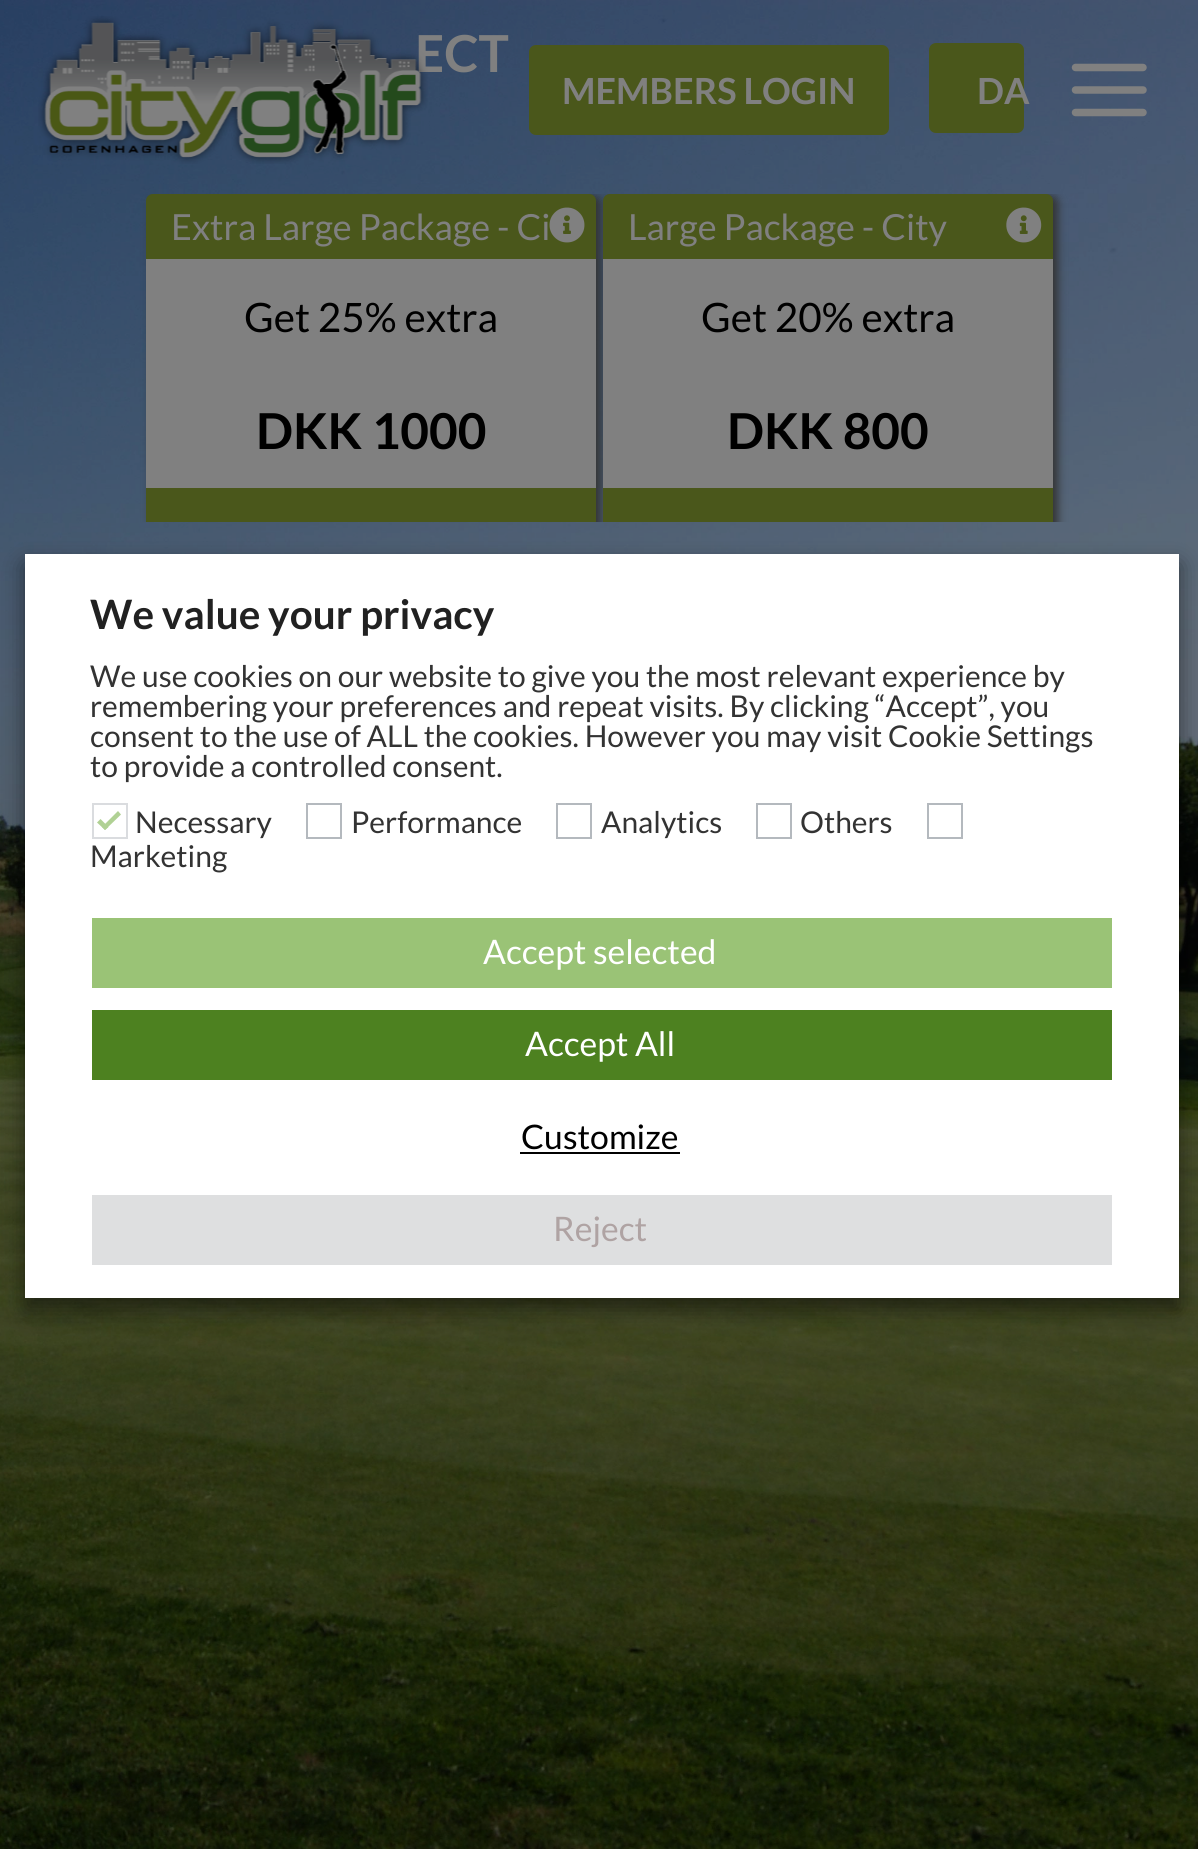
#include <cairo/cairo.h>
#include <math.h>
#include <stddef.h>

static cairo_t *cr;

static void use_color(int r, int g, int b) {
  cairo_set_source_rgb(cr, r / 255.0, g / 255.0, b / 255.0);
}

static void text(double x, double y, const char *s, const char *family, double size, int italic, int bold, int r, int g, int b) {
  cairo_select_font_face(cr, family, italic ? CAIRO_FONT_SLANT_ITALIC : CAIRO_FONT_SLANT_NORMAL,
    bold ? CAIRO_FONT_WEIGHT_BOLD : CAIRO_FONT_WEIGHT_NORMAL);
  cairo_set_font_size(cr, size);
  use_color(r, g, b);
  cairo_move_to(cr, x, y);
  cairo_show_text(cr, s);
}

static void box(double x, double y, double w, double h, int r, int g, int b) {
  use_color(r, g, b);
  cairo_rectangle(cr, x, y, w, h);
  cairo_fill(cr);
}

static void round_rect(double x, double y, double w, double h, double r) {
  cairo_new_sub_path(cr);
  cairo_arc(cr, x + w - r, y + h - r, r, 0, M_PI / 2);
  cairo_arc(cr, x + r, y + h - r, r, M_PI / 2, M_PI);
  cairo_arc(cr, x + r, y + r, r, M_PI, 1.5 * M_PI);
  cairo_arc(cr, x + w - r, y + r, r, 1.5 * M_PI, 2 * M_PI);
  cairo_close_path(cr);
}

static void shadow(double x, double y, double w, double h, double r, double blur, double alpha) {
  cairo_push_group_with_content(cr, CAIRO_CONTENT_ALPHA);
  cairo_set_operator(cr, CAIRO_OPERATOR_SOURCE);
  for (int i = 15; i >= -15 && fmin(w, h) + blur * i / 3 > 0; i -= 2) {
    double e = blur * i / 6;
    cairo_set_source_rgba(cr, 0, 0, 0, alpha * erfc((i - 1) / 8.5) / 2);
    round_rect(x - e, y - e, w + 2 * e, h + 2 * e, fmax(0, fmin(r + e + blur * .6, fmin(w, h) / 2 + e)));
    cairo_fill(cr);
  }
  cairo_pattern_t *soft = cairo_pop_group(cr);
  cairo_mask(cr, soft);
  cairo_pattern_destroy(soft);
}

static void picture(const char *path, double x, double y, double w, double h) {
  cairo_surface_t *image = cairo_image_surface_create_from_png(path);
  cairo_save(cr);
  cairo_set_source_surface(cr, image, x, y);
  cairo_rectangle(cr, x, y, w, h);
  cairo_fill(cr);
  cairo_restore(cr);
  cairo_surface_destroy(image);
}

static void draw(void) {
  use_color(255, 255, 255);
  cairo_paint(cr);
  picture("img_01.png", 0, 0, 1198, 1849);
  cairo_save(cr);
  cairo_rectangle(cr, 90, 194, 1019, 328);
  cairo_clip(cr);
  use_color(51, 51, 51);
  shadow(151, 196, 450, 382, 7, 4.5, 1);
  cairo_restore(cr);
  box(146, 259, 450, 229, 128, 128, 128);
  box(146, 488, 450, 34, 74, 87, 27);
  cairo_save(cr);
  cairo_rectangle(cr, 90, 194, 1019, 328);
  cairo_clip(cr);
  use_color(51, 51, 51);
  shadow(608, 196, 450, 382, 7, 4.5, 1);
  cairo_restore(cr);
  cairo_new_path(cr);
  cairo_move_to(cr, 153, 194);
  cairo_line_to(cr, 589, 194);
  cairo_curve_to(cr, 593, 194, 596, 197, 596, 201);
  cairo_line_to(cr, 596, 259);
  cairo_line_to(cr, 146, 259);
  cairo_line_to(cr, 146, 201);
  cairo_curve_to(cr, 146, 197, 149, 194, 153, 194);
  cairo_close_path(cr);
  cairo_fill(cr);
  picture("img_02.png", 549, 207, 36, 36);
  cairo_new_path(cr);
  cairo_move_to(cr, 610, 194);
  cairo_line_to(cr, 1046, 194);
  cairo_curve_to(cr, 1050, 194, 1053, 197, 1053, 201);
  cairo_line_to(cr, 1053, 259);
  cairo_line_to(cr, 603, 259);
  cairo_line_to(cr, 603, 201);
  cairo_curve_to(cr, 603, 197, 606, 194, 610, 194);
  cairo_close_path(cr);
  cairo_fill(cr);
  picture("img_03.png", 1006, 207, 36, 36);
  box(603, 259, 450, 229, 128, 128, 128);
  box(603, 488, 450, 34, 74, 87, 27);
  round_rect(529, 45, 360, 90, 7);
  cairo_fill(cr);
  round_rect(930, 44, 93, 88, 6);
  cairo_fill_preserve(cr);
  cairo_stroke(cr);
  picture("img_05.png", 1071, 63, 76, 54);
  use_color(0, 0, 0);
  shadow(25, 565, 1154, 745, 0, 11, 0.5);
  box(25, 554, 1154, 744, 255, 255, 255);
  cairo_rectangle(cr, 93, 804, 34, 34);
  use_color(218, 220, 223);
  cairo_stroke(cr);
  use_color(176, 209, 148);
  cairo_new_path(cr);
  cairo_move_to(cr, 118, 811);
  cairo_line_to(cr, 121, 814.5);
  cairo_line_to(cr, 105, 830);
  cairo_line_to(cr, 102, 827);
  cairo_close_path(cr);
  cairo_fill(cr);
  cairo_new_path(cr);
  cairo_move_to(cr, 100.5, 819);
  cairo_line_to(cr, 108.5, 827);
  cairo_line_to(cr, 105, 830);
  cairo_line_to(cr, 97, 822.5);
  cairo_close_path(cr);
  cairo_fill(cr);
  cairo_rectangle(cr, 307, 804, 34, 34);
  use_color(180, 185, 190);
  cairo_stroke(cr);
  cairo_rectangle(cr, 557, 804, 34, 34);
  cairo_stroke(cr);
  cairo_rectangle(cr, 757, 804, 34, 34);
  cairo_stroke(cr);
  cairo_rectangle(cr, 928, 804, 34, 34);
  cairo_stroke(cr);
  box(92, 918, 1020, 70, 154, 195, 118);
  box(92, 1010, 1020, 70, 77, 129, 32);
  box(520, 1152, 160, 2, 0, 0, 0);
  box(92, 1195, 1020, 70, 222, 223, 224);
  text(415, 72, "ECT", "Lato", 51, 0, 1, 128, 128, 128);
  text(171, 240, "Extra Large Package - Ci", "Lato", 36, 0, 0, 128, 128, 128);
  text(244, 332, "Get 25% extra", "Lato", 40.5, 0, 0, 0, 0, 0);
  text(256, 449, "DKK 1000", "Lato", 49.5, 0, 1, 0, 0, 0);
  text(628, 240, "Large Package - City", "Lato", 36, 0, 0, 128, 128, 128);
  text(701, 332, "Get 20% extra", "Lato", 40.5, 0, 0, 0, 0, 0);
  text(727, 449, "DKK 800", "Lato", 49.5, 0, 1, 0, 0, 0);
  picture("img_04.png", 38, 16, 390, 148);
  text(562, 104, "MEMBERS LOGIN", "Lato", 36, 0, 1, 128, 128, 128);
  text(977, 104, "DA", "Lato", 36, 0, 1, 128, 128, 128);
  text(90, 629, "We value your privacy", "Lato", 40.5, 0, 1, 33, 33, 33);
  text(90, 687, "We use cookies on our website to give you the most relevant experience by", "Lato", 30, 0, 0, 51, 51, 51);
  text(90, 717, "remembering your preferences and repeat visits. By clicking “Accept”, you", "Lato", 30, 0, 0, 51, 51, 51);
  text(90, 747, "consent to the use of ALL the cookies. However you may visit Cookie Settings", "Lato", 30, 0, 0, 51, 51, 51);
  text(90, 777, "to provide a controlled consent.", "Lato", 30, 0, 0, 51, 51, 51);
  text(135, 833, "Necessary", "Lato", 30, 0, 0, 51, 51, 51);
  text(351, 833, "Performance", "Lato", 30, 0, 0, 51, 51, 51);
  text(601, 833, "Analytics", "Lato", 30, 0, 0, 51, 51, 51);
  text(800, 833, "Others", "Lato", 30, 0, 0, 51, 51, 51);
  text(90, 867, "Marketing", "Lato", 30, 0, 0, 51, 51, 51);
  text(483, 964, "Accept selected", "Lato", 33.75, 0, 0, 255, 255, 255);
  text(525, 1056, "Accept All", "Lato", 33.75, 0, 0, 255, 255, 255);
  text(521, 1149, "Customize", "Lato", 33.75, 0, 0, 0, 0, 0);
  text(553, 1241, "Reject", "Lato", 33.75, 0, 0, 175, 163, 163);
}

int main(void) {
  cairo_surface_t *surface = cairo_image_surface_create(CAIRO_FORMAT_RGB24, 1198, 1849);
  cr = cairo_create(surface);
  cairo_font_options_t *options = cairo_font_options_create();
  cairo_font_options_set_hint_metrics(options, CAIRO_HINT_METRICS_OFF);
  cairo_font_options_set_hint_style(options, CAIRO_HINT_STYLE_NONE);
  cairo_set_font_options(cr, options);
  cairo_set_miter_limit(cr, 4);
  draw();
  cairo_surface_write_to_png(surface, "out.png");
  cairo_font_options_destroy(options);
  cairo_destroy(cr);
  cairo_surface_destroy(surface);
  return 0;
}
